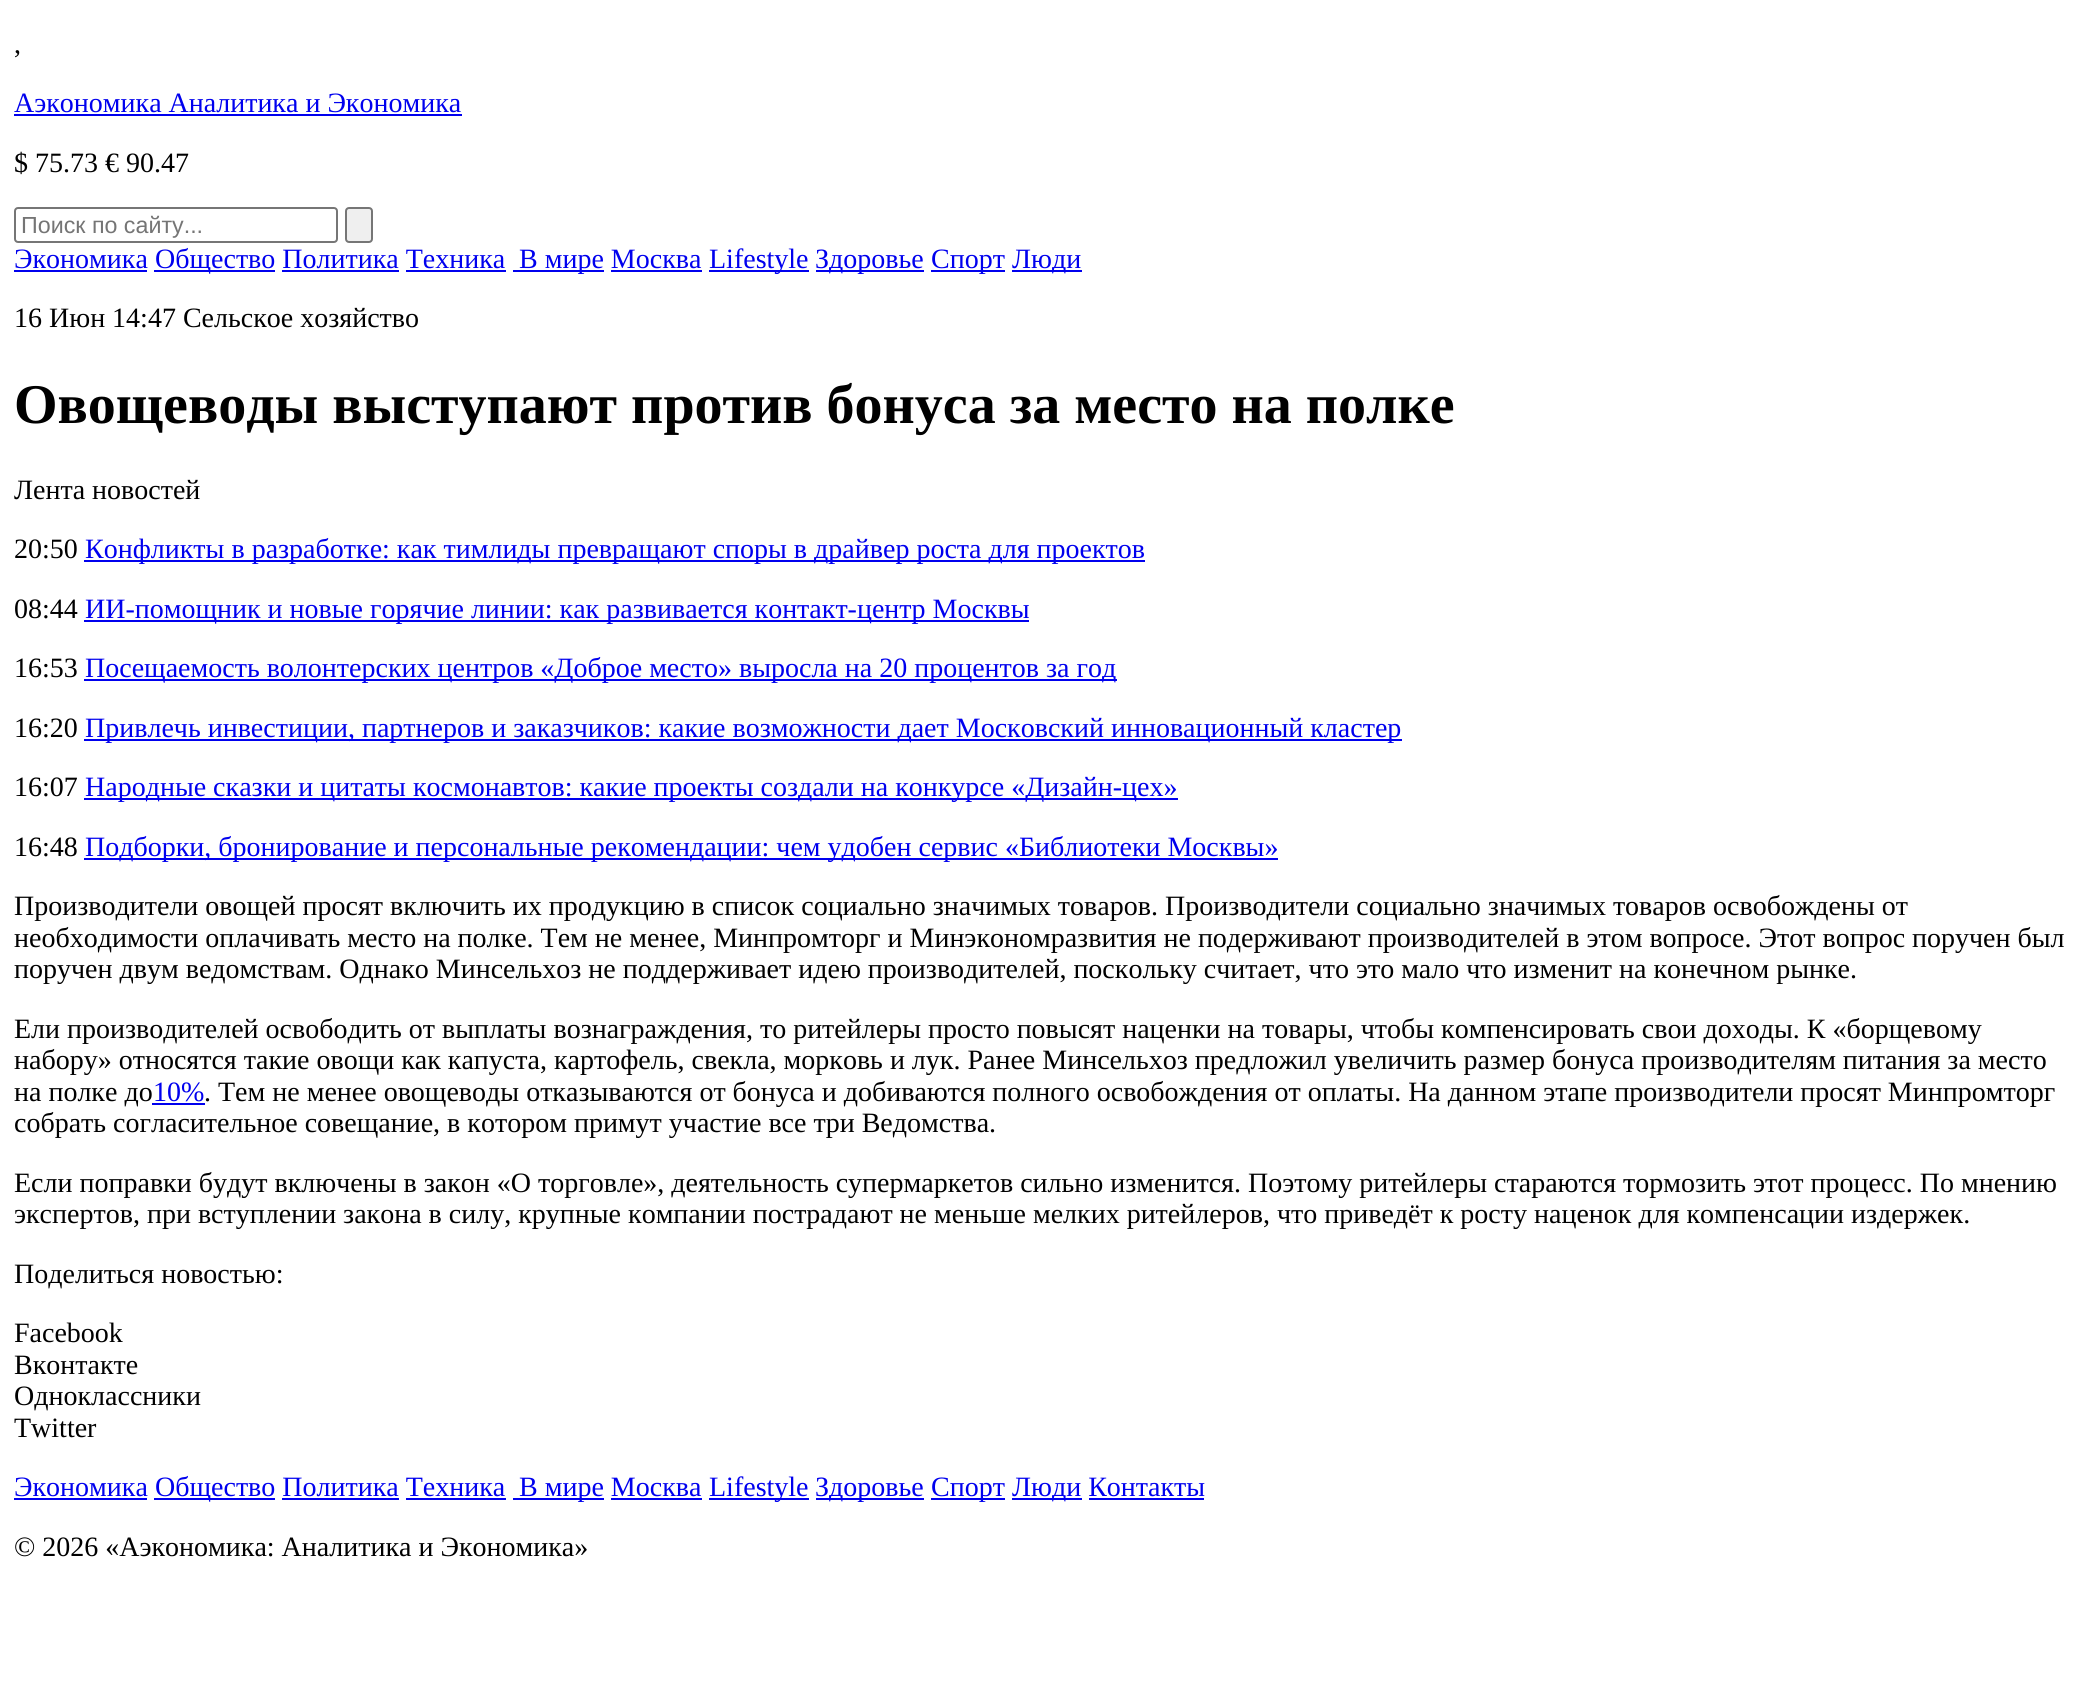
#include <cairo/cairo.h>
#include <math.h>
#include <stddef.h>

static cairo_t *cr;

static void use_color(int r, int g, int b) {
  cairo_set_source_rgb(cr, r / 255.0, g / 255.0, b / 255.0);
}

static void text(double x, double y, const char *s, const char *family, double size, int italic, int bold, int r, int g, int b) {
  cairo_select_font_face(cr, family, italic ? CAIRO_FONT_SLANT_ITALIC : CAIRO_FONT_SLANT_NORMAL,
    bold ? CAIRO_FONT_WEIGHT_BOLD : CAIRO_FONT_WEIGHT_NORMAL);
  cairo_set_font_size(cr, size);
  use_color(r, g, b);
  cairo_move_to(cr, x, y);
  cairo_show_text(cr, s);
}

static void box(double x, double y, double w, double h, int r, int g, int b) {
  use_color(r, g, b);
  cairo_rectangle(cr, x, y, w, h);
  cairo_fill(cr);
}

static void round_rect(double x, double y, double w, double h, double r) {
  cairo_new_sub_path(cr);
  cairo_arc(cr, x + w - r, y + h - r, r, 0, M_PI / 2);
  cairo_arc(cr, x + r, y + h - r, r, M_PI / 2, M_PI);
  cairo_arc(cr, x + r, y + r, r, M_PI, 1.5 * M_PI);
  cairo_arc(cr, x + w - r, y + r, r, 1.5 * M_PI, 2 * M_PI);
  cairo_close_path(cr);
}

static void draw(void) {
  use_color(255, 255, 255);
  cairo_paint(cr);
  box(14, 114, 448, 2, 0, 0, 238);
  round_rect(15, 208, 322, 34, 3);
  use_color(118, 118, 118);
  cairo_stroke(cr);
  use_color(239, 239, 239);
  round_rect(346, 208, 26, 34, 3);
  cairo_fill_preserve(cr);
  use_color(118, 118, 118);
  cairo_stroke(cr);
  box(14, 270, 133, 2, 0, 0, 238);
  box(154, 270, 121, 2, 0, 0, 238);
  box(513, 270, 91, 2, 0, 0, 238);
  box(709, 270, 100, 2, 0, 0, 238);
  box(816, 270, 108, 2, 0, 0, 238);
  box(931, 270, 74, 2, 0, 0, 238);
  box(1012, 270, 70, 2, 0, 0, 238);
  box(282, 270, 117, 2, 0, 0, 238);
  box(406, 270, 100, 2, 0, 0, 238);
  box(611, 270, 91, 2, 0, 0, 238);
  box(84, 560, 1061, 2, 0, 0, 238);
  box(84, 620, 945, 2, 0, 0, 238);
  box(84, 679, 1033, 2, 0, 0, 238);
  box(84, 739, 1318, 2, 0, 0, 238);
  box(84, 798, 1094, 2, 0, 0, 238);
  box(84, 858, 1194, 2, 0, 0, 238);
  box(152, 1103, 53, 2, 0, 0, 238);
  box(14, 1498, 133, 2, 0, 0, 238);
  box(154, 1498, 121, 2, 0, 0, 238);
  box(513, 1498, 91, 2, 0, 0, 238);
  box(709, 1498, 100, 2, 0, 0, 238);
  box(816, 1498, 108, 2, 0, 0, 238);
  box(931, 1498, 74, 2, 0, 0, 238);
  box(1012, 1498, 70, 2, 0, 0, 238);
  box(282, 1498, 117, 2, 0, 0, 238);
  box(406, 1498, 100, 2, 0, 0, 238);
  box(611, 1498, 91, 2, 0, 0, 238);
  box(1089, 1498, 115, 2, 0, 0, 238);
  text(14, 53, ",", "Liberation Serif", 28, 0, 0, 0, 0, 0);
  text(14, 112, "Аэкономика Аналитика и Экономика", "Liberation Serif", 28, 0, 0, 0, 0, 238);
  text(14, 172, "$ 75.73 € 90.47", "Liberation Serif", 28, 0, 0, 0, 0, 0);
  text(21, 233, "Поиск по сайту...", "Liberation Sans", 23.25, 0, 0, 117, 117, 117);
  text(14, 268, "Экономика", "Liberation Serif", 28, 0, 0, 0, 0, 238);
  text(155, 268, "Общество Политика Техника", "Liberation Serif", 28, 0, 0, 0, 0, 238);
  text(519, 268, "В мире Москва", "Liberation Serif", 28, 0, 0, 0, 0, 238);
  text(709, 268, "Lifestyle", "Liberation Serif", 28, 0, 0, 0, 0, 238);
  text(815, 268, "Здоровье", "Liberation Serif", 28, 0, 0, 0, 0, 238);
  text(931, 268, "Спорт", "Liberation Serif", 28, 0, 0, 0, 0, 238);
  text(1012, 268, "Люди", "Liberation Serif", 28, 0, 0, 0, 0, 238);
  text(14, 327, "16 Июн 14:47 Сельское хозяйство", "Liberation Serif", 28, 0, 0, 0, 0, 0);
  text(14, 423, "Овощеводы выступают против бонуса за место на полке", "Liberation Serif", 56, 0, 1, 0, 0, 0);
  text(14, 499, "Лента новостей", "Liberation Serif", 28, 0, 0, 0, 0, 0);
  text(14, 558, "20:50", "Liberation Serif", 28, 0, 0, 0, 0, 0);
  text(85, 558, "Конфликты в разработке: как тимлиды превращают споры в драйвер роста для проектов", "Liberation Serif", 28, 0, 0, 0, 0, 238);
  text(14, 618, "08:44", "Liberation Serif", 28, 0, 0, 0, 0, 0);
  text(85, 618, "ИИ-помощник и новые горячие линии: как развивается контакт-центр Москвы", "Liberation Serif", 28, 0, 0, 0, 0, 238);
  text(14, 677, "16:53", "Liberation Serif", 28, 0, 0, 0, 0, 0);
  text(85, 677, "Посещаемость волонтерских центров «Доброе место» выросла на 20 процентов за год", "Liberation Serif", 28, 0, 0, 0, 0, 238);
  text(14, 737, "16:20", "Liberation Serif", 28, 0, 0, 0, 0, 0);
  text(85, 737, "Привлечь инвестиции, партнеров и заказчиков: какие возможности дает Московский инновационный кластер", "Liberation Serif", 28, 0, 0, 0, 0, 238);
  text(14, 796, "16:07", "Liberation Serif", 28, 0, 0, 0, 0, 0);
  text(85, 796, "Народные сказки и цитаты космонавтов: какие проекты создали на конкурсе «Дизайн-цех»", "Liberation Serif", 28, 0, 0, 0, 0, 238);
  text(14, 856, "16:48", "Liberation Serif", 28, 0, 0, 0, 0, 0);
  text(85, 856, "Подборки, бронирование и персональные рекомендации: чем удобен сервис «Библиотеки Москвы»", "Liberation Serif", 28, 0, 0, 0, 0, 238);
  text(14, 915, "Производители овощей просят включить их продукцию в список социально значимых товаров. Производители социально значимых товаров освобождены от", "Liberation Serif", 28, 0, 0, 0, 0, 0);
  text(14, 947, "необходимости оплачивать место на полке. Тем не менее, Минпромторг и Минэкономразвития не подерживают производителей в этом вопросе. Этот вопрос поручен был", "Liberation Serif", 28, 0, 0, 0, 0, 0);
  text(14, 978, "поручен двум ведомствам. Однако Минсельхоз не поддерживает идею производителей, поскольку считает, что это мало что изменит на конечном рынке.", "Liberation Serif", 28, 0, 0, 0, 0, 0);
  text(14, 1038, "Ели производителей освободить от выплаты вознаграждения, то ритейлеры просто повысят наценки на товары, чтобы компенсировать свои доходы. К «борщевому", "Liberation Serif", 28, 0, 0, 0, 0, 0);
  text(14, 1069, "набору» относятся такие овощи как капуста, картофель, свекла, морковь и лук. Ранее Минсельхоз предложил увеличить размер бонуса производителям питания за место", "Liberation Serif", 28, 0, 0, 0, 0, 0);
  text(14, 1101, "на полке до", "Liberation Serif", 28, 0, 0, 0, 0, 0);
  text(153, 1101, "10%", "Liberation Serif", 28, 0, 0, 0, 0, 238);
  text(204, 1101, ". Тем не менее овощеводы отказываются от бонуса и добиваются полного освобождения от оплаты. На данном этапе производители просят Минпромторг", "Liberation Serif", 28, 0, 0, 0, 0, 0);
  text(14, 1132, "собрать согласительное совещание, в котором примут участие все три Ведомства.", "Liberation Serif", 28, 0, 0, 0, 0, 0);
  text(14, 1192, "Если поправки будут включены в закон «О торговле», деятельность супермаркетов сильно изменится. Поэтому ритейлеры стараются тормозить этот процесс. По мнению", "Liberation Serif", 28, 0, 0, 0, 0, 0);
  text(14, 1223, "экспертов, при вступлении закона в силу, крупные компании пострадают не меньше мелких ритейлеров, что приведёт к росту наценок для компенсации издержек.", "Liberation Serif", 28, 0, 0, 0, 0, 0);
  text(14, 1283, "Поделиться новостью:", "Liberation Serif", 28, 0, 0, 0, 0, 0);
  text(14, 1342, "Facebook", "Liberation Serif", 28, 0, 0, 0, 0, 0);
  text(14, 1374, "Вконтакте", "Liberation Serif", 28, 0, 0, 0, 0, 0);
  text(14, 1405, "Одноклассники", "Liberation Serif", 28, 0, 0, 0, 0, 0);
  text(14, 1437, "Twitter", "Liberation Serif", 28, 0, 0, 0, 0, 0);
  text(14, 1496, "Экономика", "Liberation Serif", 28, 0, 0, 0, 0, 238);
  text(155, 1496, "Общество Политика Техника", "Liberation Serif", 28, 0, 0, 0, 0, 238);
  text(519, 1496, "В мире Москва", "Liberation Serif", 28, 0, 0, 0, 0, 238);
  text(709, 1496, "Lifestyle", "Liberation Serif", 28, 0, 0, 0, 0, 238);
  text(815, 1496, "Здоровье", "Liberation Serif", 28, 0, 0, 0, 0, 238);
  text(931, 1496, "Спорт", "Liberation Serif", 28, 0, 0, 0, 0, 238);
  text(1012, 1496, "Люди Контакты", "Liberation Serif", 28, 0, 0, 0, 0, 238);
  text(14, 1556, "© 2026 «Аэкономика: Аналитика и Экономика»", "Liberation Serif", 28, 0, 0, 0, 0, 0);
}

int main(void) {
  cairo_surface_t *surface = cairo_image_surface_create(CAIRO_FORMAT_RGB24, 2079, 1708);
  cr = cairo_create(surface);
  cairo_font_options_t *options = cairo_font_options_create();
  cairo_font_options_set_hint_metrics(options, CAIRO_HINT_METRICS_OFF);
  cairo_font_options_set_hint_style(options, CAIRO_HINT_STYLE_NONE);
  cairo_set_font_options(cr, options);
  cairo_set_miter_limit(cr, 4);
  draw();
  cairo_surface_write_to_png(surface, "out.png");
  cairo_font_options_destroy(options);
  cairo_destroy(cr);
  cairo_surface_destroy(surface);
  return 0;
}
